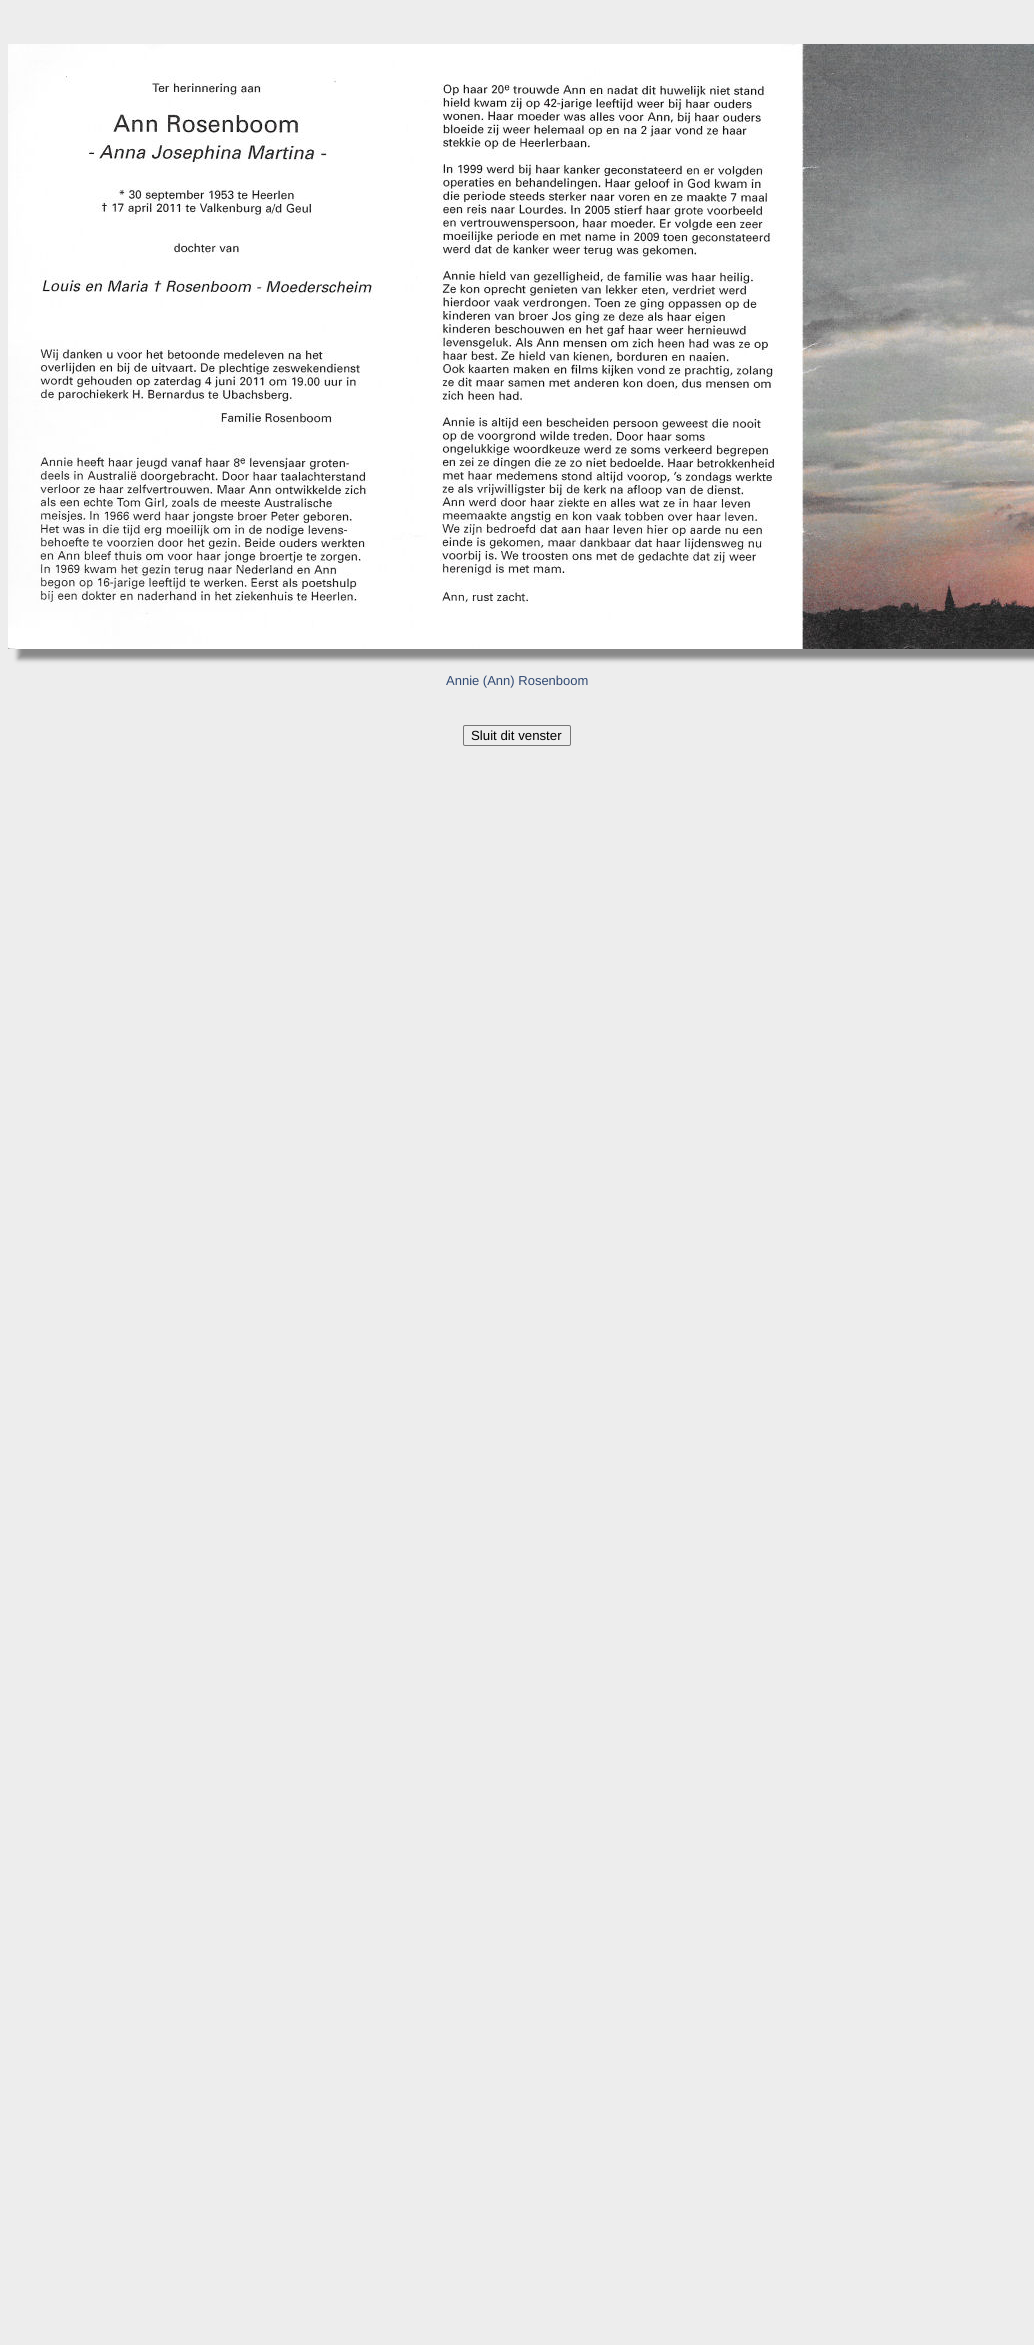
#include <cairo/cairo.h>
#include <math.h>
#include <stddef.h>

static cairo_t *cr;

static void use_color(int r, int g, int b) {
  cairo_set_source_rgb(cr, r / 255.0, g / 255.0, b / 255.0);
}

static void text(double x, double y, const char *s, const char *family, double size, int italic, int bold, int r, int g, int b) {
  cairo_select_font_face(cr, family, italic ? CAIRO_FONT_SLANT_ITALIC : CAIRO_FONT_SLANT_NORMAL,
    bold ? CAIRO_FONT_WEIGHT_BOLD : CAIRO_FONT_WEIGHT_NORMAL);
  cairo_set_font_size(cr, size);
  use_color(r, g, b);
  cairo_move_to(cr, x, y);
  cairo_show_text(cr, s);
}

static void round_rect(double x, double y, double w, double h, double r) {
  cairo_new_sub_path(cr);
  cairo_arc(cr, x + w - r, y + h - r, r, 0, M_PI / 2);
  cairo_arc(cr, x + r, y + h - r, r, M_PI / 2, M_PI);
  cairo_arc(cr, x + r, y + r, r, M_PI, 1.5 * M_PI);
  cairo_arc(cr, x + w - r, y + r, r, 1.5 * M_PI, 2 * M_PI);
  cairo_close_path(cr);
}

static void shadow(double x, double y, double w, double h, double r, double blur, double alpha) {
  cairo_push_group_with_content(cr, CAIRO_CONTENT_ALPHA);
  cairo_set_operator(cr, CAIRO_OPERATOR_SOURCE);
  for (int i = 15; i >= -15 && fmin(w, h) + blur * i / 3 > 0; i -= 2) {
    double e = blur * i / 6;
    cairo_set_source_rgba(cr, 0, 0, 0, alpha * erfc((i - 1) / 8.5) / 2);
    round_rect(x - e, y - e, w + 2 * e, h + 2 * e, fmax(0, fmin(r + e + blur * .6, fmin(w, h) / 2 + e)));
    cairo_fill(cr);
  }
  cairo_pattern_t *soft = cairo_pop_group(cr);
  cairo_mask(cr, soft);
  cairo_pattern_destroy(soft);
}

static void picture(const char *path, double x, double y, double w, double h) {
  cairo_surface_t *image = cairo_image_surface_create_from_png(path);
  cairo_save(cr);
  cairo_set_source_surface(cr, image, x, y);
  cairo_rectangle(cr, x, y, w, h);
  cairo_fill(cr);
  cairo_restore(cr);
  cairo_surface_destroy(image);
}

static void draw(void) {
  use_color(237, 237, 237);
  cairo_paint(cr);
  use_color(136, 136, 136);
  shadow(18, 54, 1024, 605, 0, 2.5, 1);
  picture("img_01.png", 8, 44, 1026, 605);
  round_rect(463.5, 725.5, 107, 20, 1.5);
  use_color(118, 118, 118);
  cairo_set_line_width(cr, 1);
  cairo_stroke(cr);
  text(446, 685, "Annie (Ann) Rosenboom", "Liberation Sans", 13, 0, 0, 48, 73, 114);
  text(471, 740, "Sluit dit venster", "Liberation Sans", 13.25, 0, 0, 0, 0, 0);
}

int main(void) {
  cairo_surface_t *surface = cairo_image_surface_create(CAIRO_FORMAT_RGB24, 1034, 2345);
  cr = cairo_create(surface);
  cairo_font_options_t *options = cairo_font_options_create();
  cairo_font_options_set_hint_metrics(options, CAIRO_HINT_METRICS_OFF);
  cairo_font_options_set_hint_style(options, CAIRO_HINT_STYLE_NONE);
  cairo_set_font_options(cr, options);
  cairo_set_miter_limit(cr, 4);
  draw();
  cairo_surface_write_to_png(surface, "out.png");
  cairo_font_options_destroy(options);
  cairo_destroy(cr);
  cairo_surface_destroy(surface);
  return 0;
}
